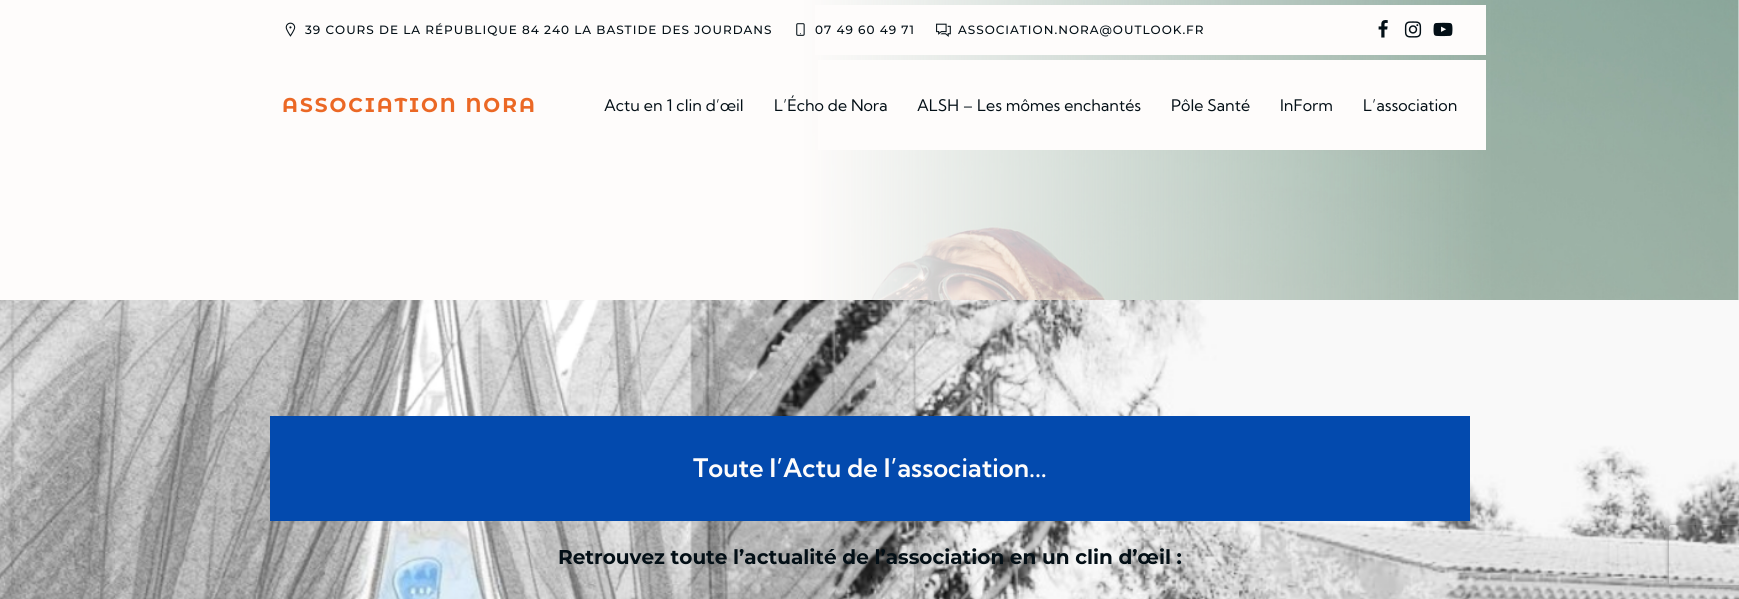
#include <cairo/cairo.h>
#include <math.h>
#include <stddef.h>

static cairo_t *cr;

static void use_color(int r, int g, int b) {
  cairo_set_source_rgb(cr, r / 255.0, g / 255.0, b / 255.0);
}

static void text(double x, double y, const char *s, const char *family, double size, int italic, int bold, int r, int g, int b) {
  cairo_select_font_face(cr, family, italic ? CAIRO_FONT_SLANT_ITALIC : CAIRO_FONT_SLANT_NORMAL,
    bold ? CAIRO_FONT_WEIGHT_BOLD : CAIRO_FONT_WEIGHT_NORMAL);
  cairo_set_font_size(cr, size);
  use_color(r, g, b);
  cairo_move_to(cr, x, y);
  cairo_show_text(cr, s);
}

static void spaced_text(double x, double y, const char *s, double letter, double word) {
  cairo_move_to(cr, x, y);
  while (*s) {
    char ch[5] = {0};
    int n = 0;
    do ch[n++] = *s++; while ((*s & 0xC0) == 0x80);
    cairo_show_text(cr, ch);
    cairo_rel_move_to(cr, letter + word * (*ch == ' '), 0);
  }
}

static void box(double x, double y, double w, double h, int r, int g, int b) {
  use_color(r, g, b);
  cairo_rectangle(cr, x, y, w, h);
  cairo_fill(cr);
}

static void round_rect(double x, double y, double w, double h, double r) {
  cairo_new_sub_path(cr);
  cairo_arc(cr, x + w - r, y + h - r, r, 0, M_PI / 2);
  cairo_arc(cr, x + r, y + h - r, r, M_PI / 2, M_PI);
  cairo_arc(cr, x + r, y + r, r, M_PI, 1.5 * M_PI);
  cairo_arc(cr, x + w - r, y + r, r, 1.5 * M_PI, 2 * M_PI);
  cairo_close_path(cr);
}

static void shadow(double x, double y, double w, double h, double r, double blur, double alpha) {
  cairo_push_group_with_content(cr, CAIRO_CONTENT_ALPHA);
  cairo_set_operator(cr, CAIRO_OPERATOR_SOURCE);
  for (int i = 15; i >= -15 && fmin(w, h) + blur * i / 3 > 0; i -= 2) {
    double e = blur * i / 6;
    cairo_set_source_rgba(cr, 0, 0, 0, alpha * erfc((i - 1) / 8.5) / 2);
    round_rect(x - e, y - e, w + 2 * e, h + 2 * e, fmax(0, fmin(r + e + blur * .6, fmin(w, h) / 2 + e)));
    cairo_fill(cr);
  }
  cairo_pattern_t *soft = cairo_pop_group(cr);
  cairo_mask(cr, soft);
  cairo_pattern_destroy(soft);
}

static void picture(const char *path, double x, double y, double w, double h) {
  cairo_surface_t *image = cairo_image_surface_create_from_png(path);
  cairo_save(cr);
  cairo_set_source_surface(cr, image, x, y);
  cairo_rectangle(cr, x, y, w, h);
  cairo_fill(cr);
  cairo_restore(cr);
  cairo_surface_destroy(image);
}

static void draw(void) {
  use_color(255, 255, 255);
  cairo_paint(cr);
  picture("img_01.png", 0, 0, 1739, 300);
  box(815, 5, 671, 50, 254, 252, 251);
  picture("img_02.png", 285, 22, 11, 15);
  picture("img_03.png", 796, 23, 9, 13);
  picture("img_04.png", 936, 23, 15, 14);
  picture("img_05.png", 1378, 20, 10, 18);
  picture("img_06.png", 1404, 21, 18, 17);
  picture("img_07.png", 1433, 22, 20, 15);
  box(818, 60, 668, 90, 254, 252, 251);
  picture("img_08.png", 0, 300, 1739, 299);
  box(270, 416, 1200, 105, 3, 74, 174);
  cairo_save(cr);
  cairo_set_fill_rule(cr, CAIRO_FILL_RULE_EVEN_ODD);
  cairo_new_path(cr);
  cairo_move_to(cr, 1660, 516);
  cairo_line_to(cr, 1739, 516);
  cairo_line_to(cr, 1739, 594);
  cairo_line_to(cr, 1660, 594);
  cairo_close_path(cr);
  cairo_move_to(cr, 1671, 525);
  cairo_line_to(cr, 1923, 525);
  cairo_curve_to(cr, 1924, 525, 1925, 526, 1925, 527);
  cairo_line_to(cr, 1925, 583);
  cairo_curve_to(cr, 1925, 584, 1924, 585, 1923, 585);
  cairo_line_to(cr, 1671, 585);
  cairo_curve_to(cr, 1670, 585, 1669, 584, 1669, 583);
  cairo_line_to(cr, 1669, 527);
  cairo_curve_to(cr, 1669, 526, 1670, 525, 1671, 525);
  cairo_close_path(cr);
  cairo_clip(cr);
  use_color(128, 128, 128);
  shadow(1669, 525, 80, 60, 2, 2.5, 1);
  cairo_restore(cr);
  cairo_select_font_face(cr, "Montserrat Medium", CAIRO_FONT_SLANT_NORMAL, CAIRO_FONT_WEIGHT_NORMAL);
  cairo_set_font_size(cr, 12);
  use_color(3, 15, 22);
  spaced_text(305, 34, "39 COURS DE LA RÉPUBLIQUE 84 240 LA BASTIDE DES JOURDANS", 1, 0);
  spaced_text(815, 34, "07 49 60 49 71", 1, 0);
  spaced_text(958, 34, "ASSOCIATION.NORA@OUTLOOK.FR", 1, 0);
  cairo_select_font_face(cr, "Montserrat Alternates", CAIRO_FONT_SLANT_NORMAL, CAIRO_FONT_WEIGHT_BOLD);
  cairo_set_font_size(cr, 20);
  use_color(235, 104, 37);
  spaced_text(282, 112, "ASSOCIATION NORA", 2, 0);
  text(604, 111, "Actu en 1 clin d’œil", "Kumbh Sans", 16, 0, 0, 3, 15, 22);
  text(774, 111, "L’Écho de Nora", "Kumbh Sans", 16, 0, 0, 3, 15, 22);
  text(917, 111, "ALSH – Les mômes enchantés", "Kumbh Sans", 16, 0, 0, 3, 15, 22);
  text(1171, 111, "Pôle Santé", "Kumbh Sans", 16, 0, 0, 3, 15, 22);
  text(1280, 111, "InForm", "Kumbh Sans", 16, 0, 0, 3, 15, 22);
  text(1363, 111, "L’association", "Kumbh Sans", 16, 0, 0, 3, 15, 22);
  text(693, 477, "Toute l’Actu de l’association...", "Kumbh Sans SemiBold", 25.6, 0, 0, 254, 252, 251);
  text(558, 564, "Retrouvez toute l’actualité de l’association en un clin d’œil :", "Montserrat", 20, 0, 1, 3, 15, 22);
}

int main(void) {
  cairo_surface_t *surface = cairo_image_surface_create(CAIRO_FORMAT_RGB24, 1739, 599);
  cr = cairo_create(surface);
  cairo_font_options_t *options = cairo_font_options_create();
  cairo_font_options_set_hint_metrics(options, CAIRO_HINT_METRICS_OFF);
  cairo_font_options_set_hint_style(options, CAIRO_HINT_STYLE_NONE);
  cairo_set_font_options(cr, options);
  cairo_set_miter_limit(cr, 4);
  draw();
  cairo_surface_write_to_png(surface, "out.png");
  cairo_font_options_destroy(options);
  cairo_destroy(cr);
  cairo_surface_destroy(surface);
  return 0;
}
